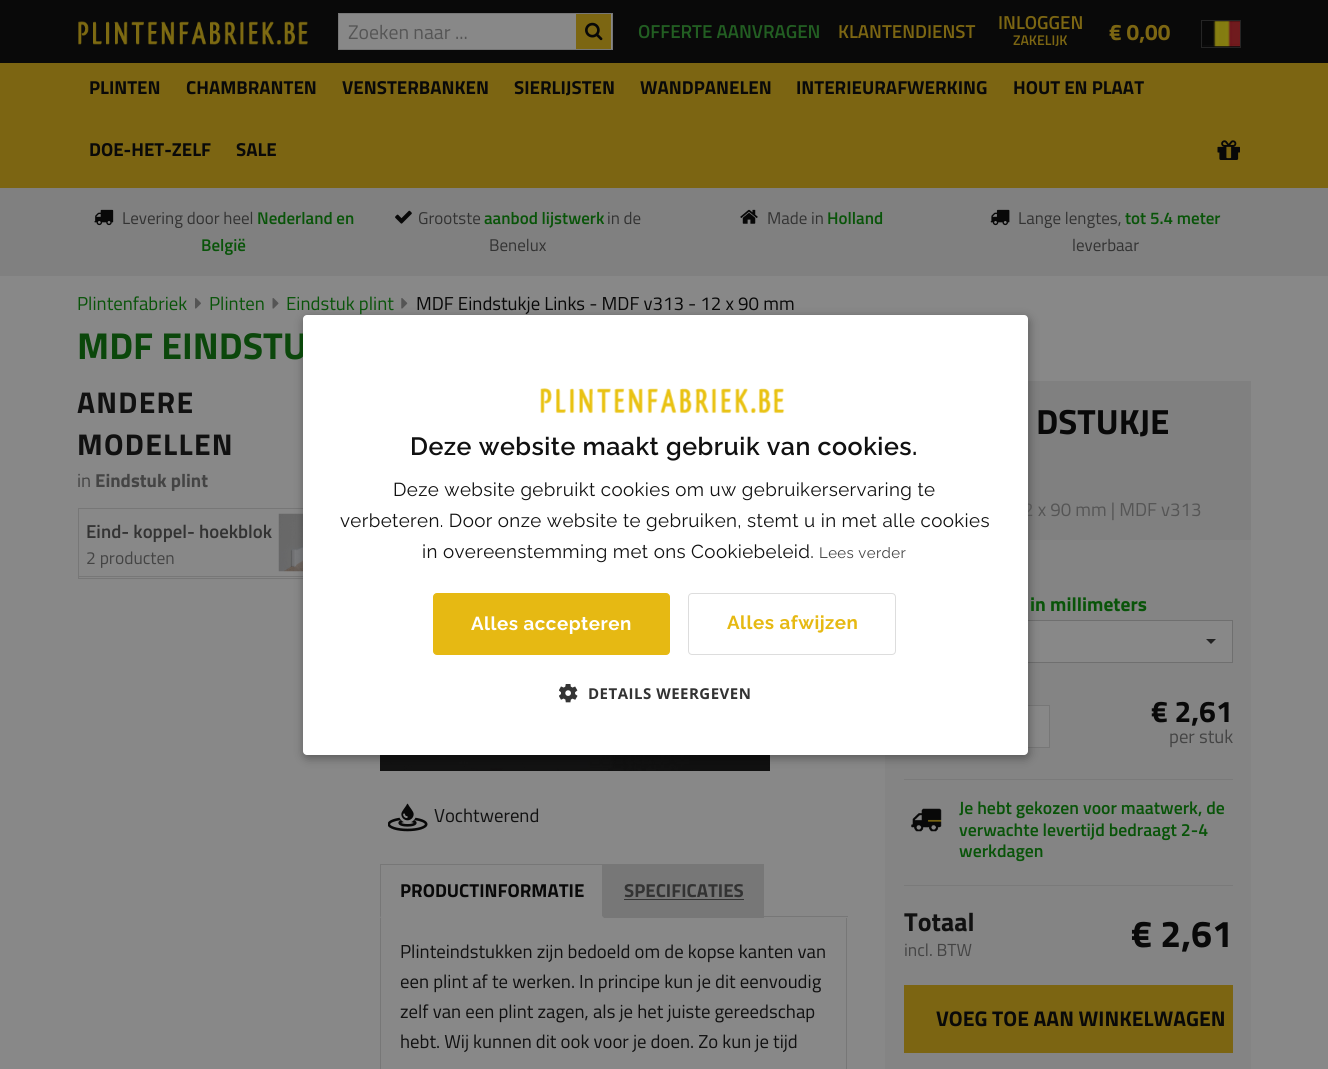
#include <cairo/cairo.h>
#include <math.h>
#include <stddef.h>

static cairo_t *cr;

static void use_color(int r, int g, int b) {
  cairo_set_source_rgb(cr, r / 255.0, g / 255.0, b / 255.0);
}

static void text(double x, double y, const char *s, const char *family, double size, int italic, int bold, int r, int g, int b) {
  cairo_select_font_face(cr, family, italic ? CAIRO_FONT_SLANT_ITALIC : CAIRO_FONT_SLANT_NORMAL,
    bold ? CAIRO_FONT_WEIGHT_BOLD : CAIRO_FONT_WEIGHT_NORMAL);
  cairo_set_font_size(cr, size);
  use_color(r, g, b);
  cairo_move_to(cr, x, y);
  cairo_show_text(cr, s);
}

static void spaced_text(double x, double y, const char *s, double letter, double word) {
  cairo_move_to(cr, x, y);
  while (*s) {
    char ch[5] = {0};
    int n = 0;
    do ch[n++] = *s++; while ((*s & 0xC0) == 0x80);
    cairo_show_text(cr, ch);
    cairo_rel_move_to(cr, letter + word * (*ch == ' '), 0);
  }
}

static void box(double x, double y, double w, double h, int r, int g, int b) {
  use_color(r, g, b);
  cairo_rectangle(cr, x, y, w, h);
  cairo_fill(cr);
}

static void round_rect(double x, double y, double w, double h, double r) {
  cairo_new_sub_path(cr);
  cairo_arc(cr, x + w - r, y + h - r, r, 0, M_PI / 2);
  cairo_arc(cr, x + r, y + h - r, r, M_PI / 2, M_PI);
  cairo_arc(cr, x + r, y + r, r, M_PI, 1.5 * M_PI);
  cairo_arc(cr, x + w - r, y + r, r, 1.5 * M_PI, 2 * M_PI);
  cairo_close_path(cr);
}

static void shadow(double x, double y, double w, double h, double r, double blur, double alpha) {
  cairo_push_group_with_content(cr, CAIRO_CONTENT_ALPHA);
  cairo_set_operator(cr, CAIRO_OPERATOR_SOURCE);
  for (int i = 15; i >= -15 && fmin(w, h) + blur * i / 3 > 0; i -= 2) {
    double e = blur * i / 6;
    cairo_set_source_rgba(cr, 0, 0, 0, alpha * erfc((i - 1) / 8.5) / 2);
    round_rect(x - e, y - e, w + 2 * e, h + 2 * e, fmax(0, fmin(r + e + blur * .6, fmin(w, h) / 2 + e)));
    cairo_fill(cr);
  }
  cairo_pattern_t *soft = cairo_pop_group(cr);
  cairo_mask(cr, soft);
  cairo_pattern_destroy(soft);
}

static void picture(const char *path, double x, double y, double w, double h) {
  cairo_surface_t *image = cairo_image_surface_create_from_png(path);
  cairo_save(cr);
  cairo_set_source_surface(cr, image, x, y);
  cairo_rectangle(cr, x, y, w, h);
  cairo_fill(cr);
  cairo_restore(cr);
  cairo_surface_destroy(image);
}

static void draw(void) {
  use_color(136, 136, 136);
  cairo_paint(cr);
  box(0, 0, 1328, 63, 9, 9, 9);
  picture("img_01.png", 78, 21, 230, 24);
  use_color(136, 136, 136);
  cairo_rectangle(cr, 338.5, 13.5, 274, 36);
  cairo_fill_preserve(cr);
  use_color(119, 119, 119);
  cairo_set_line_width(cr, 1);
  cairo_stroke(cr);
  box(576, 14, 35, 35, 124, 102, 18);
  picture("img_02.png", 585, 22, 18, 19);
  cairo_rectangle(cr, 1201.5, 20.5, 39, 27);
  use_color(37, 37, 37);
  cairo_stroke(cr);
  picture("img_03.png", 1203, 21, 37, 26);
  box(0, 63, 1328, 125, 124, 101, 18);
  picture("img_04.png", 1217, 140, 23, 20);
  box(0, 188, 1328, 88, 128, 128, 128);
  picture("img_05.png", 94, 209, 20, 17);
  picture("img_06.png", 395, 210, 17, 14);
  picture("img_07.png", 740, 209, 18, 15);
  picture("img_08.png", 990, 209, 20, 17);
  picture("img_09.png", 195, 298, 6, 11);
  picture("img_10.png", 272, 298, 7, 11);
  picture("img_11.png", 401, 298, 7, 11);
  cairo_rectangle(cr, 78.5, 508.5, 264, 70);
  use_color(119, 119, 119);
  cairo_stroke(cr);
  box(79, 576, 224, 1, 119, 119, 119);
  picture("img_12.png", 278, 513, 25, 59);
  picture("img_13.png", 380, 755, 390, 16);
  picture("img_14.png", 388, 803, 40, 29);
  box(764, 916, 84, 1, 119, 119, 119);
  box(380, 864, 224, 1, 119, 119, 119);
  cairo_new_path(cr);
  cairo_move_to(cr, 604, 864);
  cairo_line_to(cr, 604, 918);
  cairo_line_to(cr, 602, 916);
  cairo_line_to(cr, 602, 865);
  cairo_close_path(cr);
  cairo_fill(cr);
  cairo_new_path(cr);
  cairo_move_to(cr, 380, 918);
  cairo_line_to(cr, 380, 864);
  cairo_line_to(cr, 381, 865);
  cairo_line_to(cr, 381, 916);
  cairo_close_path(cr);
  cairo_fill(cr);
  box(604, 864, 160, 54, 119, 119, 119);
  box(624, 899, 120, 1, 51, 51, 51);
  box(846, 918, 1, 151, 119, 119, 119);
  box(380, 918, 1, 151, 119, 119, 119);
  box(1028, 381, 223, 159, 128, 128, 128);
  box(885, 540, 366, 529, 132, 132, 132);
  box(1028, 621, 204, 41, 136, 136, 136);
  cairo_rectangle(cr, 904.5, 620.5, 328, 42);
  use_color(111, 111, 111);
  cairo_stroke(cr);
  use_color(34, 34, 34);
  cairo_new_path(cr);
  cairo_move_to(cr, 1206, 639);
  cairo_line_to(cr, 1216, 639);
  cairo_line_to(cr, 1211, 644);
  cairo_close_path(cr);
  cairo_fill(cr);
  box(1028, 706, 21, 41, 136, 136, 136);
  cairo_rectangle(cr, 904.5, 705.5, 145, 42);
  use_color(119, 119, 119);
  cairo_stroke(cr);
  box(904, 779, 329, 1, 122, 122, 122);
  picture("img_15.png", 911, 808, 31, 24);
  box(904, 885, 329, 1, 122, 122, 122);
  box(904, 985, 329, 68, 124, 101, 18);
  use_color(0, 0, 0);
  shadow(304, 318, 725, 440, 4, 5, 0.35);
  text(348, 39, "Zoeken naar ...", "Titillium Web", 19.75, 0, 0, 85, 85, 85);
  text(638, 38, "OFFERTE AANVRAGEN", "Titillium Web SemiBold", 18.75, 0, 0, 34, 94, 34);
  text(838, 38, "KLANTENDIENST", "Titillium Web SemiBold", 18.75, 0, 0, 124, 102, 18);
  text(998, 29, "INLOGGEN", "Titillium Web SemiBold", 18.75, 0, 0, 124, 102, 18);
  text(1013, 45, "ZAKELIJK", "Titillium Web SemiBold", 14, 0, 0, 124, 102, 18);
  text(1109, 40, "€ 0,00", "Titillium Web", 22.5, 0, 1, 124, 102, 18);
  text(89, 94, "PLINTEN", "Titillium Web", 18.75, 0, 1, 9, 9, 9);
  text(186, 94, "CHAMBRANTEN", "Titillium Web", 18.75, 0, 1, 9, 9, 9);
  text(342, 94, "VENSTERBANKEN", "Titillium Web", 18.75, 0, 1, 9, 9, 9);
  text(514, 94, "SIERLIJSTEN", "Titillium Web", 18.75, 0, 1, 9, 9, 9);
  text(640, 94, "WANDPANELEN", "Titillium Web", 18.75, 0, 1, 9, 9, 9);
  text(796, 94, "INTERIEURAFWERKING", "Titillium Web", 18.75, 0, 1, 9, 9, 9);
  text(1013, 94, "HOUT EN PLAAT", "Titillium Web", 18.75, 0, 1, 9, 9, 9);
  text(89, 156, "DOE-HET-ZELF", "Titillium Web", 18.75, 0, 1, 9, 9, 9);
  text(236, 156, "SALE", "Titillium Web", 18.75, 0, 1, 9, 9, 9);
  text(122, 224, "Levering door heel", "Titillium Web", 17, 0, 0, 51, 51, 51);
  text(257, 224, "Nederland en", "Titillium Web SemiBold", 17, 0, 0, 9, 84, 9);
  text(201, 251, "België", "Titillium Web SemiBold", 17, 0, 0, 9, 84, 9);
  text(418, 224, "Grootste", "Titillium Web", 17, 0, 0, 51, 51, 51);
  text(484, 224, "aanbod lijstwerk", "Titillium Web SemiBold", 17, 0, 0, 9, 84, 9);
  text(607, 224, "in de", "Titillium Web", 17, 0, 0, 51, 51, 51);
  text(489, 251, "Benelux", "Titillium Web", 17, 0, 0, 51, 51, 51);
  text(767, 224, "Made in", "Titillium Web", 17, 0, 0, 51, 51, 51);
  text(827, 224, "Holland", "Titillium Web SemiBold", 17, 0, 0, 9, 84, 9);
  text(1018, 224, "Lange lengtes,", "Titillium Web", 17, 0, 0, 51, 51, 51);
  text(1125, 224, "tot 5.4 meter", "Titillium Web SemiBold", 17, 0, 0, 9, 84, 9);
  text(1072, 251, "leverbaar", "Titillium Web", 17, 0, 0, 51, 51, 51);
  text(77, 310, "Plintenfabriek", "Titillium Web", 18.75, 0, 0, 9, 84, 9);
  text(209, 310, "Plinten", "Titillium Web", 18.75, 0, 0, 9, 84, 9);
  text(286, 310, "Eindstuk plint", "Titillium Web", 18.75, 0, 0, 9, 84, 9);
  text(416, 310, "MDF Eindstukje Links - MDF v313 - 12 x 90 mm", "Titillium Web", 18.75, 0, 0, 9, 9, 9);
  text(77, 359, "MDF EINDSTU", "Titillium Web", 37.5, 0, 1, 11, 71, 11);
  cairo_set_font_size(cr, 30);
  use_color(17, 17, 17);
  spaced_text(77, 413, "ANDERE", 1.25, 0);
  spaced_text(77, 455, "MODELLEN", 1.25, 0);
  text(77, 487, "in", "Titillium Web", 18.75, 0, 0, 68, 68, 68);
  text(95, 487, "Eindstuk plint", "Titillium Web", 18.75, 0, 1, 68, 68, 68);
  text(86, 538, "Eind- koppel- hoekblok", "Titillium Web SemiBold", 18.75, 0, 0, 51, 51, 51);
  text(86, 564, "2 producten", "Titillium Web", 17.5, 0, 0, 68, 68, 68);
  text(434, 822, "Vochtwerend", "Titillium Web", 18.75, 0, 0, 17, 17, 17);
  text(400, 897, "PRODUCTINFORMATIE", "Titillium Web", 18.75, 0, 1, 9, 9, 9);
  text(624, 897, "SPECIFICATIES", "Titillium Web", 18.75, 0, 1, 51, 51, 51);
  text(400, 958, "Plinteindstukken zijn bedoeld om de kopse kanten van", "Titillium Web", 18.75, 0, 0, 17, 17, 17);
  text(400, 988, "een plint af te werken. In principe kun je dit eenvoudig", "Titillium Web", 18.75, 0, 0, 17, 17, 17);
  text(400, 1018, "zelf van een plint zagen, als je het juiste gereedschap", "Titillium Web", 18.75, 0, 0, 17, 17, 17);
  text(400, 1048, "hebt. Wij kunnen dit ook voor je doen. Zo kun je tijd", "Titillium Web", 18.75, 0, 0, 17, 17, 17);
  text(1036, 434, "DSTUKJE", "Titillium Web", 35, 0, 1, 9, 9, 9);
  text(1023, 516, "2 x 90 mm | MDF v313", "Titillium Web", 18.75, 0, 0, 85, 85, 85);
  text(1030, 611, "in millimeters", "Titillium Web", 19.5, 0, 1, 9, 84, 9);
  text(1151, 722, "€ 2,61", "Titillium Web", 30, 0, 1, 9, 9, 9);
  text(1169, 743, "per stuk", "Titillium Web", 18.75, 0, 0, 68, 68, 68);
  text(959, 814, "Je hebt gekozen voor maatwerk, de", "Titillium Web SemiBold", 17.75, 0, 0, 9, 84, 9);
  text(959, 836, "verwachte levertijd bedraagt 2-4", "Titillium Web SemiBold", 17.75, 0, 0, 9, 84, 9);
  text(959, 857, "werkdagen", "Titillium Web SemiBold", 17.75, 0, 0, 9, 84, 9);
  text(904, 931, "Totaal", "Titillium Web", 26, 0, 1, 17, 17, 17);
  text(904, 956, "incl. BTW", "Titillium Web", 17.5, 0, 0, 68, 68, 68);
  text(1131, 947, "€ 2,61", "Titillium Web", 37.5, 0, 1, 9, 9, 9);
  text(936, 1026, "VOEG TOE AAN WINKELWAGEN", "Titillium Web", 21.25, 0, 1, 9, 9, 9);
  use_color(255, 255, 255);
  round_rect(303, 315, 725, 440, 4);
  cairo_fill(cr);
  picture("img_16.png", 540, 388, 245, 26);
  cairo_select_font_face(cr, "Raleway SemiBold", CAIRO_FONT_SLANT_NORMAL, CAIRO_FONT_WEIGHT_NORMAL);
  cairo_set_font_size(cr, 25);
  use_color(17, 17, 17);
  spaced_text(410, 455, "Deze website maakt gebruik van cookies.", 0.5, 0);
  cairo_select_font_face(cr, "Raleway", CAIRO_FONT_SLANT_NORMAL, CAIRO_FONT_WEIGHT_NORMAL);
  cairo_set_font_size(cr, 18.75);
  spaced_text(393, 496, "Deze website gebruikt cookies om uw gebruikerservaring te", 0.38, 0);
  spaced_text(340, 527, "verbeteren. Door onze website te gebruiken, stemt u in met alle cookies", 0.38, 0);
  spaced_text(422, 558, "in overeenstemming met ons Cookiebeleid.", 0.38, 0);
  cairo_set_font_size(cr, 15);
  use_color(68, 68, 68);
  spaced_text(819, 558, "Lees verder", 0.38, 0);
  use_color(230, 185, 19);
  round_rect(433.5, 593.5, 236, 61, 3.5);
  cairo_fill_preserve(cr);
  cairo_stroke(cr);
  cairo_select_font_face(cr, "Raleway", CAIRO_FONT_SLANT_NORMAL, CAIRO_FONT_WEIGHT_BOLD);
  cairo_set_font_size(cr, 18.75);
  use_color(255, 255, 255);
  spaced_text(471, 630, "Alles accepteren", 0.5, 0);
  round_rect(688.5, 593.5, 207, 61, 3.5);
  use_color(221, 221, 221);
  cairo_stroke(cr);
  use_color(230, 185, 19);
  spaced_text(727, 629, "Alles afwijzen", 0.5, 0);
  picture("img_17.png", 559, 684, 19, 19);
  cairo_select_font_face(cr, "Open Sans", CAIRO_FONT_SLANT_NORMAL, CAIRO_FONT_WEIGHT_BOLD);
  cairo_set_font_size(cr, 15);
  use_color(51, 51, 51);
  spaced_text(588, 699, "DETAILS WEERGEVEN", 0.5, 0);
}

int main(void) {
  cairo_surface_t *surface = cairo_image_surface_create(CAIRO_FORMAT_RGB24, 1328, 1069);
  cr = cairo_create(surface);
  cairo_font_options_t *options = cairo_font_options_create();
  cairo_font_options_set_hint_metrics(options, CAIRO_HINT_METRICS_OFF);
  cairo_font_options_set_hint_style(options, CAIRO_HINT_STYLE_NONE);
  cairo_set_font_options(cr, options);
  cairo_set_miter_limit(cr, 4);
  draw();
  cairo_surface_write_to_png(surface, "out.png");
  cairo_font_options_destroy(options);
  cairo_destroy(cr);
  cairo_surface_destroy(surface);
  return 0;
}
